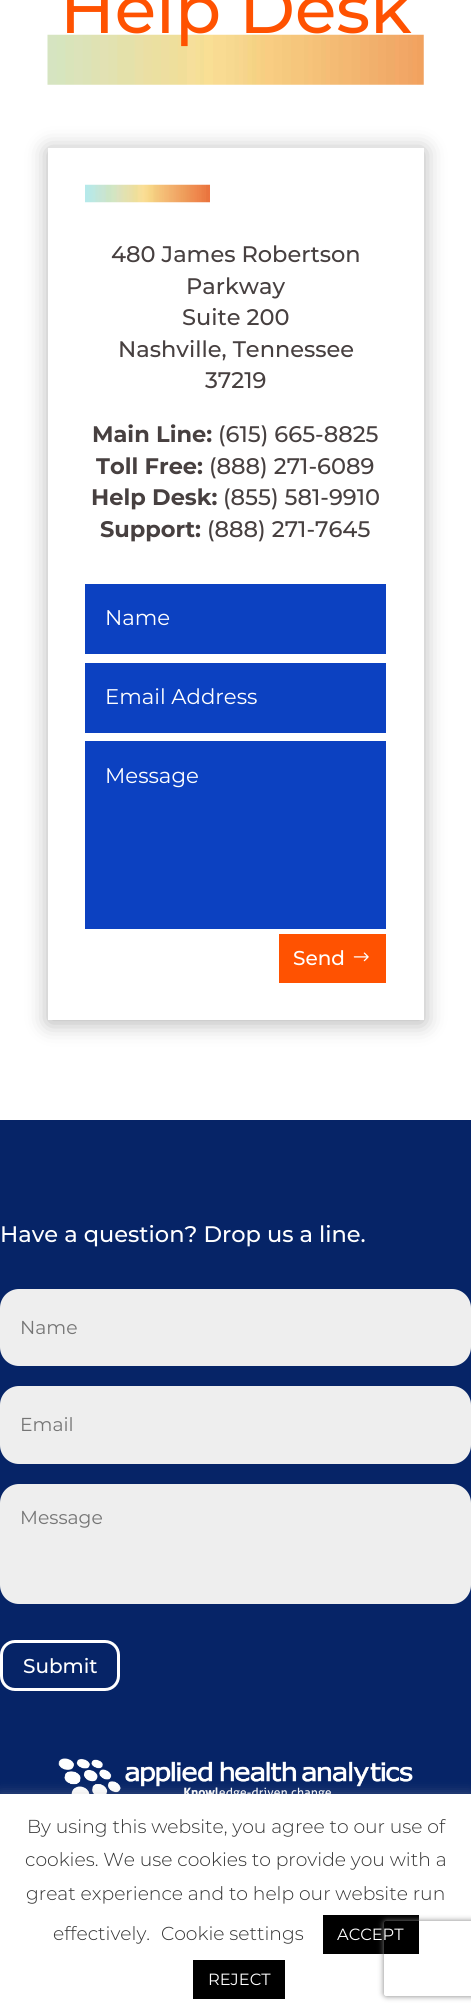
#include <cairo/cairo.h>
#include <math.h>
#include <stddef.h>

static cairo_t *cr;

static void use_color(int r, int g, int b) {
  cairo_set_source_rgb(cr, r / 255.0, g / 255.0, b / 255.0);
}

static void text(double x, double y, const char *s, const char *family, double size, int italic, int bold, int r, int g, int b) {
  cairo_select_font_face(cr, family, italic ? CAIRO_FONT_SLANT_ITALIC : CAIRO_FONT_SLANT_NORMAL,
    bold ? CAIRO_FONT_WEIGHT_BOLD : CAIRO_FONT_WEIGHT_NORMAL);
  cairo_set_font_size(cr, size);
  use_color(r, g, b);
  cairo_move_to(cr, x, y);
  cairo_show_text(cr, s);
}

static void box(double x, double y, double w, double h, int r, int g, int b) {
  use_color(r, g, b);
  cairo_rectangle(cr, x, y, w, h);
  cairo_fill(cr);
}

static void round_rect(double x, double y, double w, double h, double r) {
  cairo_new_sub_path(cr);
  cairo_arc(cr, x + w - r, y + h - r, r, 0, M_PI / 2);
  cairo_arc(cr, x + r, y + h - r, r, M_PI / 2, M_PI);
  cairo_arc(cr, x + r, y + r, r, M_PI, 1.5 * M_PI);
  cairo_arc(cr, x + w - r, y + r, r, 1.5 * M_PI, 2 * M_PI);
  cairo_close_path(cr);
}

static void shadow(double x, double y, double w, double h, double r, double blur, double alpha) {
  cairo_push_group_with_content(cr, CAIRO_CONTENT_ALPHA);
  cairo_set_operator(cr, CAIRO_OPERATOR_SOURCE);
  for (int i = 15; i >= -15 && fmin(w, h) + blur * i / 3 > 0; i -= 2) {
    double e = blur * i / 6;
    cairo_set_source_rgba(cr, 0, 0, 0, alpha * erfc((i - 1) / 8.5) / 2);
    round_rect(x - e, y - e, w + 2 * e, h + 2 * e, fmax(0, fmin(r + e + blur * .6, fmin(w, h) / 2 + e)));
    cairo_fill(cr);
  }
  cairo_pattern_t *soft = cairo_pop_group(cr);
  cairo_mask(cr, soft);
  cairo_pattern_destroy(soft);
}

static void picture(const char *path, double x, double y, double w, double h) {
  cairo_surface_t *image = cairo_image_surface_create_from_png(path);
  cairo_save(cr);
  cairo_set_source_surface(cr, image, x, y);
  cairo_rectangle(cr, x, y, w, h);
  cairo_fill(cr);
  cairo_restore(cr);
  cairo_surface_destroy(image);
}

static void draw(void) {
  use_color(255, 255, 255);
  cairo_paint(cr);
  picture("img_01.png", 47, 34, 377, 51);
  use_color(0, 0, 0);
  shadow(48, 150, 376, 873, 0, 11, 0.3);
  box(48, 148, 376, 872, 255, 255, 255);
  picture("img_02.png", 85, 184, 125, 19);
  box(85, 584, 301, 70, 12, 65, 193);
  box(85, 663, 301, 70, 12, 65, 193);
  box(85, 741, 301, 188, 12, 65, 193);
  box(279, 934, 107, 49, 255, 82, 1);
  picture("img_03.png", 353, 952, 16, 10);
  box(0, 1120, 471, 674, 6, 36, 103);
  use_color(238, 238, 238);
  round_rect(0, 1289, 471, 77, 19);
  cairo_fill(cr);
  round_rect(0, 1386, 471, 78, 19);
  cairo_fill(cr);
  round_rect(0, 1484, 471, 120, 19);
  cairo_fill(cr);
  round_rect(1.5, 1641.5, 117, 48, 13.5);
  use_color(255, 255, 255);
  cairo_set_line_width(cr, 3);
  cairo_stroke(cr);
  picture("img_04.png", 58, 1758, 355, 36);
  use_color(172, 171, 171);
  shadow(0, 1793, 471, 220, 0, 6, 0.3);
  box(0, 1794, 471, 219, 255, 255, 255);
  box(323, 1915, 96, 39, 0, 0, 0);
  box(193, 1960, 92, 39, 0, 0, 0);
  cairo_save(cr);
  cairo_set_fill_rule(cr, CAIRO_FILL_RULE_EVEN_ODD);
  cairo_new_path(cr);
  cairo_move_to(cr, 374, 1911);
  cairo_line_to(cr, 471, 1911);
  cairo_line_to(cr, 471, 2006);
  cairo_line_to(cr, 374, 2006);
  cairo_close_path(cr);
  cairo_move_to(cr, 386.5, 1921);
  cairo_line_to(cr, 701.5, 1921);
  cairo_curve_to(cr, 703, 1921, 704, 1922, 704, 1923.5);
  cairo_line_to(cr, 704, 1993.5);
  cairo_curve_to(cr, 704, 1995, 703, 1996, 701.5, 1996);
  cairo_line_to(cr, 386.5, 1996);
  cairo_curve_to(cr, 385, 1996, 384, 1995, 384, 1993.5);
  cairo_line_to(cr, 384, 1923.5);
  cairo_curve_to(cr, 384, 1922, 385, 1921, 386.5, 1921);
  cairo_close_path(cr);
  cairo_clip(cr);
  use_color(128, 128, 128);
  shadow(384, 1921, 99, 75, 2.5, 3, 1);
  cairo_restore(cr);
  text(60, 33, "Help Desk", "Montserrat Medium", 67.5, 0, 0, 255, 82, 1);
  text(111, 262, "480 James Robertson", "Montserrat Medium", 22.5, 0, 0, 71, 64, 64);
  text(186, 294, "Parkway", "Montserrat Medium", 22.5, 0, 0, 71, 64, 64);
  text(182, 325, "Suite 200", "Montserrat Medium", 22.5, 0, 0, 71, 64, 64);
  text(118, 357, "Nashville, Tennessee", "Montserrat Medium", 22.5, 0, 0, 71, 64, 64);
  text(205, 388, "37219", "Montserrat Medium", 22.5, 0, 0, 71, 64, 64);
  text(92, 442, "Main Line:", "Montserrat", 22.5, 0, 1, 71, 64, 64);
  text(218, 442, "(615) 665-8825", "Montserrat Medium", 22.5, 0, 0, 71, 64, 64);
  text(96, 474, "Toll Free:", "Montserrat", 22.5, 0, 1, 71, 64, 64);
  text(209, 474, "(888) 271-6089", "Montserrat Medium", 22.5, 0, 0, 71, 64, 64);
  text(91, 505, "Help Desk:", "Montserrat", 22.5, 0, 1, 71, 64, 64);
  text(223, 505, "(855) 581-9910", "Montserrat Medium", 22.5, 0, 0, 71, 64, 64);
  text(100, 537, "Support:", "Montserrat", 22.5, 0, 1, 71, 64, 64);
  text(207, 537, "(888) 271-7645", "Montserrat Medium", 22.5, 0, 0, 71, 64, 64);
  text(105, 625, "Name", "Montserrat", 21.25, 0, 0, 255, 255, 255);
  text(105, 704, "Email Address", "Montserrat", 21.25, 0, 0, 255, 255, 255);
  text(105, 783, "Message", "Montserrat", 21.25, 0, 0, 255, 255, 255);
  text(293, 965, "Send", "Montserrat Medium", 20, 0, 0, 255, 255, 255);
  text(0, 1242, "Have a question? Drop us a line.", "Montserrat Medium", 22.5, 0, 0, 255, 255, 255);
  text(20, 1334, "Name", "Montserrat", 18.75, 0, 0, 117, 117, 117);
  text(20, 1431, "Email", "Montserrat", 18.75, 0, 0, 117, 117, 117);
  text(20, 1524, "Message", "Montserrat", 18.75, 0, 0, 117, 117, 117);
  text(23, 1673, "Submit", "Montserrat Medium", 20, 0, 0, 255, 255, 255);
  text(27, 1833, "By using this website, you agree to our use of", "Montserrat Light", 18.75, 0, 0, 51, 51, 51);
  text(25, 1866, "cookies. We use cookies to provide you with a", "Montserrat Light", 18.75, 0, 0, 51, 51, 51);
  text(26, 1900, "great experience and to help our website run", "Montserrat Light", 18.75, 0, 0, 51, 51, 51);
  text(53, 1940, "effectively.", "Montserrat Light", 18.75, 0, 0, 51, 51, 51);
  text(161, 1940, "Cookie settings", "Montserrat Light", 18.75, 0, 0, 51, 51, 51);
  text(337, 1940, "ACCEPT", "Montserrat", 16.25, 0, 0, 255, 255, 255);
  text(208, 1985, "REJECT", "Montserrat", 16.25, 0, 0, 255, 255, 255);
}

int main(void) {
  cairo_surface_t *surface = cairo_image_surface_create(CAIRO_FORMAT_RGB24, 471, 2013);
  cr = cairo_create(surface);
  cairo_font_options_t *options = cairo_font_options_create();
  cairo_font_options_set_hint_metrics(options, CAIRO_HINT_METRICS_OFF);
  cairo_font_options_set_hint_style(options, CAIRO_HINT_STYLE_NONE);
  cairo_set_font_options(cr, options);
  cairo_set_miter_limit(cr, 4);
  draw();
  cairo_surface_write_to_png(surface, "out.png");
  cairo_font_options_destroy(options);
  cairo_destroy(cr);
  cairo_surface_destroy(surface);
  return 0;
}
